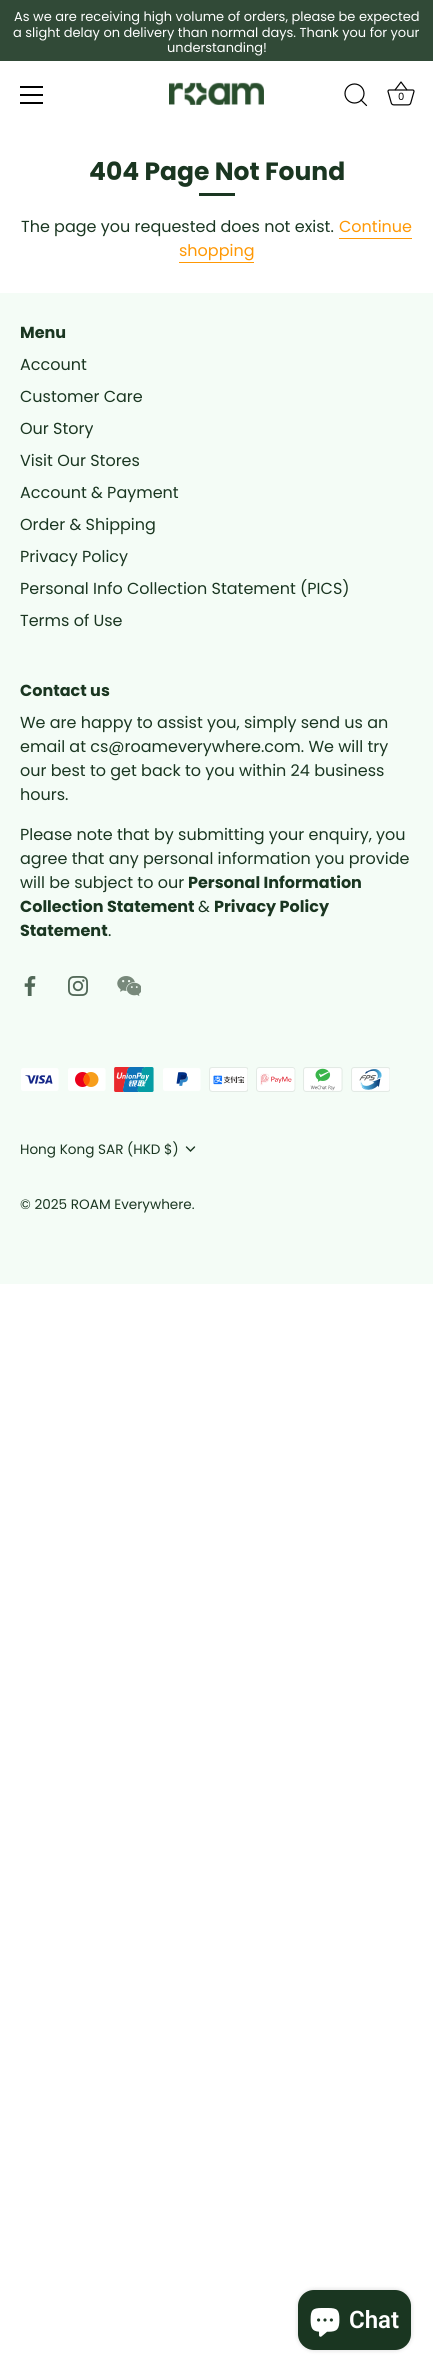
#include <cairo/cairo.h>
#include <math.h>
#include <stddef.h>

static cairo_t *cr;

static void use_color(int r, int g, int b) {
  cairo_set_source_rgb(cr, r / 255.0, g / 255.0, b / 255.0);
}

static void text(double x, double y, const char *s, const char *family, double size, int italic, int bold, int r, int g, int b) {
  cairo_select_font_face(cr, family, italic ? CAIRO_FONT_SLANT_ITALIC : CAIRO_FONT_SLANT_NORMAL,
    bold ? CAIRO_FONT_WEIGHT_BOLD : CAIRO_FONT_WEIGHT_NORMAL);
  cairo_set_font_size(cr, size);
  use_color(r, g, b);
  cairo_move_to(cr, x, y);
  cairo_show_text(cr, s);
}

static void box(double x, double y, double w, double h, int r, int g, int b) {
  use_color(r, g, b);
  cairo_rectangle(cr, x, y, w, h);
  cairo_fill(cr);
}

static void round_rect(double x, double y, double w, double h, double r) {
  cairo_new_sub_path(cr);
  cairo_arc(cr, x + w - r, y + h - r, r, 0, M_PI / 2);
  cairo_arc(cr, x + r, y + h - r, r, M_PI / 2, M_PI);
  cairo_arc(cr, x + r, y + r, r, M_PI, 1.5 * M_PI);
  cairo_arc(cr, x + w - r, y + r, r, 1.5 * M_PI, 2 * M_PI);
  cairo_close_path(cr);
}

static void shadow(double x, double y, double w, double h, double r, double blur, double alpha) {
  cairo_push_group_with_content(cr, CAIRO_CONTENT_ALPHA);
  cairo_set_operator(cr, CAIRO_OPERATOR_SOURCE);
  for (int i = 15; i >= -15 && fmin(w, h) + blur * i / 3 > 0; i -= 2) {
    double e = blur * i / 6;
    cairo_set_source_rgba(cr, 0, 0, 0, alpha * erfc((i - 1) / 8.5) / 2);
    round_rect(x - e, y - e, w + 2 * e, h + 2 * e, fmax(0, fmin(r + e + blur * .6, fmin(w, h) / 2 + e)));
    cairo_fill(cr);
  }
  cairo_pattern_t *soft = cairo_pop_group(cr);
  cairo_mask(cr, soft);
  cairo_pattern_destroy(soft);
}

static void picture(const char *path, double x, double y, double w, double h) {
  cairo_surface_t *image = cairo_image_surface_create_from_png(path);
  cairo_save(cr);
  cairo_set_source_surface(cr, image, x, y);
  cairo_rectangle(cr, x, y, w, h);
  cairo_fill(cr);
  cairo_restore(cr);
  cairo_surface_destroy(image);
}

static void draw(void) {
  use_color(255, 255, 255);
  cairo_paint(cr);
  box(0, 0, 433, 61, 49, 74, 55);
  box(20, 86, 23, 2, 0, 0, 0);
  box(20, 94, 23, 2, 0, 0, 0);
  box(20, 102, 23, 2, 0, 0, 0);
  picture("img_01.png", 169, 82, 95, 23);
  cairo_arc(cr, 354.5, 93.5, 9.5, 0, 2 * M_PI);
  cairo_set_line_width(cr, 1.2);
  cairo_stroke(cr);
  cairo_new_path(cr);
  cairo_move_to(cr, 366.5, 105.5);
  cairo_line_to(cr, 361, 100);
  cairo_set_line_cap(cr, CAIRO_LINE_CAP_ROUND);
  cairo_set_line_join(cr, CAIRO_LINE_JOIN_ROUND);
  cairo_stroke(cr);
  picture("img_02.png", 387, 81, 28, 25);
  box(199, 193, 36, 3, 26, 54, 33);
  box(339, 238, 73, 1, 255, 152, 4);
  box(179, 262, 75, 1, 255, 152, 4);
  box(0, 293, 433, 991, 244, 252, 246);
  picture("img_03.png", 24, 976, 12, 20);
  picture("img_04.png", 68, 976, 20, 20);
  picture("img_05.png", 117, 976, 24, 20);
  picture("img_06.png", 21, 1068, 38, 23);
  picture("img_07.png", 68, 1068, 38, 23);
  picture("img_08.png", 114, 1067, 40, 25);
  picture("img_09.png", 163, 1068, 38, 23);
  picture("img_10.png", 209, 1067, 39, 25);
  picture("img_11.png", 256, 1067, 40, 25);
  picture("img_12.png", 303, 1067, 40, 25);
  picture("img_13.png", 351, 1067, 39, 25);
  cairo_new_path(cr);
  cairo_move_to(cr, 186.5, 1147);
  cairo_line_to(cr, 190.5, 1151);
  cairo_line_to(cr, 194.5, 1147);
  use_color(26, 54, 33);
  cairo_set_line_width(cr, 1.4);
  cairo_set_line_join(cr, CAIRO_LINE_JOIN_MITER);
  cairo_stroke(cr);
  use_color(0, 0, 0);
  shadow(298, 2290, 113, 60, 16, 2.5, 0.15);
  use_color(26, 54, 33);
  round_rect(298, 2290, 113, 60, 16);
  cairo_fill(cr);
  picture("img_14.png", 310, 2308, 30, 29);
  text(14, 21, "As we are receiving high volume of orders, please be expected", "Poppins", 13, 0, 0, 255, 255, 255);
  text(13, 37, "a slight delay on delivery than normal days. Thank you for your", "Poppins", 13, 0, 0, 255, 255, 255);
  text(167, 52, "understanding!", "Poppins", 13, 0, 0, 255, 255, 255);
  text(398, 100, "0", "Poppins", 10, 0, 0, 0, 0, 0);
  text(89, 180, "404 Page Not Found", "Poppins", 25, 0, 1, 26, 54, 33);
  text(21, 232, "The page you requested does not exist.", "Poppins", 16, 0, 0, 26, 54, 33);
  text(339, 232, "Continue", "Poppins", 16, 0, 0, 255, 152, 4);
  text(179, 256, "shopping", "Poppins", 16, 0, 0, 255, 152, 4);
  text(20, 338, "Menu", "Poppins", 16, 0, 1, 26, 54, 33);
  text(20, 370, "Account", "Poppins", 16, 0, 0, 26, 54, 33);
  text(20, 402, "Customer Care", "Poppins", 16, 0, 0, 26, 54, 33);
  text(20, 434, "Our Story", "Poppins", 16, 0, 0, 26, 54, 33);
  text(20, 466, "Visit Our Stores", "Poppins", 16, 0, 0, 26, 54, 33);
  text(20, 498, "Account & Payment", "Poppins", 16, 0, 0, 26, 54, 33);
  text(20, 530, "Order & Shipping", "Poppins", 16, 0, 0, 26, 54, 33);
  text(20, 562, "Privacy Policy", "Poppins", 16, 0, 0, 26, 54, 33);
  text(20, 594, "Personal Info Collection Statement (PICS)", "Poppins", 16, 0, 0, 26, 54, 33);
  text(20, 626, "Terms of Use", "Poppins", 16, 0, 0, 26, 54, 33);
  text(20, 696, "Contact us", "Poppins", 16, 0, 1, 26, 54, 33);
  text(20, 728, "We are happy to assist you, simply send us an", "Poppins", 16, 0, 0, 26, 54, 33);
  text(20, 752, "email at cs@roameverywhere.com. We will try", "Poppins", 16, 0, 0, 26, 54, 33);
  text(20, 776, "our best to get back to you within 24 business", "Poppins", 16, 0, 0, 26, 54, 33);
  text(20, 800, "hours.", "Poppins", 16, 0, 0, 26, 54, 33);
  text(20, 840, "Please note that by submitting your enquiry, you", "Poppins", 16, 0, 0, 26, 54, 33);
  text(20, 864, "agree that any personal information you provide", "Poppins", 16, 0, 0, 26, 54, 33);
  text(20, 888, "will be subject to our", "Poppins", 16, 0, 0, 26, 54, 33);
  text(188, 888, "Personal Information", "Poppins", 16, 0, 1, 26, 54, 33);
  text(20, 912, "Collection Statement", "Poppins", 16, 0, 1, 26, 54, 33);
  text(198, 912, "&", "Poppins", 16, 0, 0, 26, 54, 33);
  text(214, 912, "Privacy Policy", "Poppins", 16, 0, 1, 26, 54, 33);
  text(20, 936, "Statement", "Poppins", 16, 0, 1, 26, 54, 33);
  text(108, 936, ".", "Poppins", 16, 0, 0, 26, 54, 33);
  text(20, 1154, "Hong Kong SAR (HKD $)", "Poppins", 13.6, 0, 0, 26, 54, 33);
  text(20, 1209, "© 2025 ROAM Everywhere.", "Poppins", 13.6, 0, 0, 26, 54, 33);
  text(349, 2328, "Chat", "Roboto SemiBold", 24, 0, 0, 255, 255, 255);
}

int main(void) {
  cairo_surface_t *surface = cairo_image_surface_create(CAIRO_FORMAT_RGB24, 433, 2371);
  cr = cairo_create(surface);
  cairo_font_options_t *options = cairo_font_options_create();
  cairo_font_options_set_hint_metrics(options, CAIRO_HINT_METRICS_OFF);
  cairo_font_options_set_hint_style(options, CAIRO_HINT_STYLE_NONE);
  cairo_set_font_options(cr, options);
  cairo_set_miter_limit(cr, 4);
  draw();
  cairo_surface_write_to_png(surface, "out.png");
  cairo_font_options_destroy(options);
  cairo_destroy(cr);
  cairo_surface_destroy(surface);
  return 0;
}
